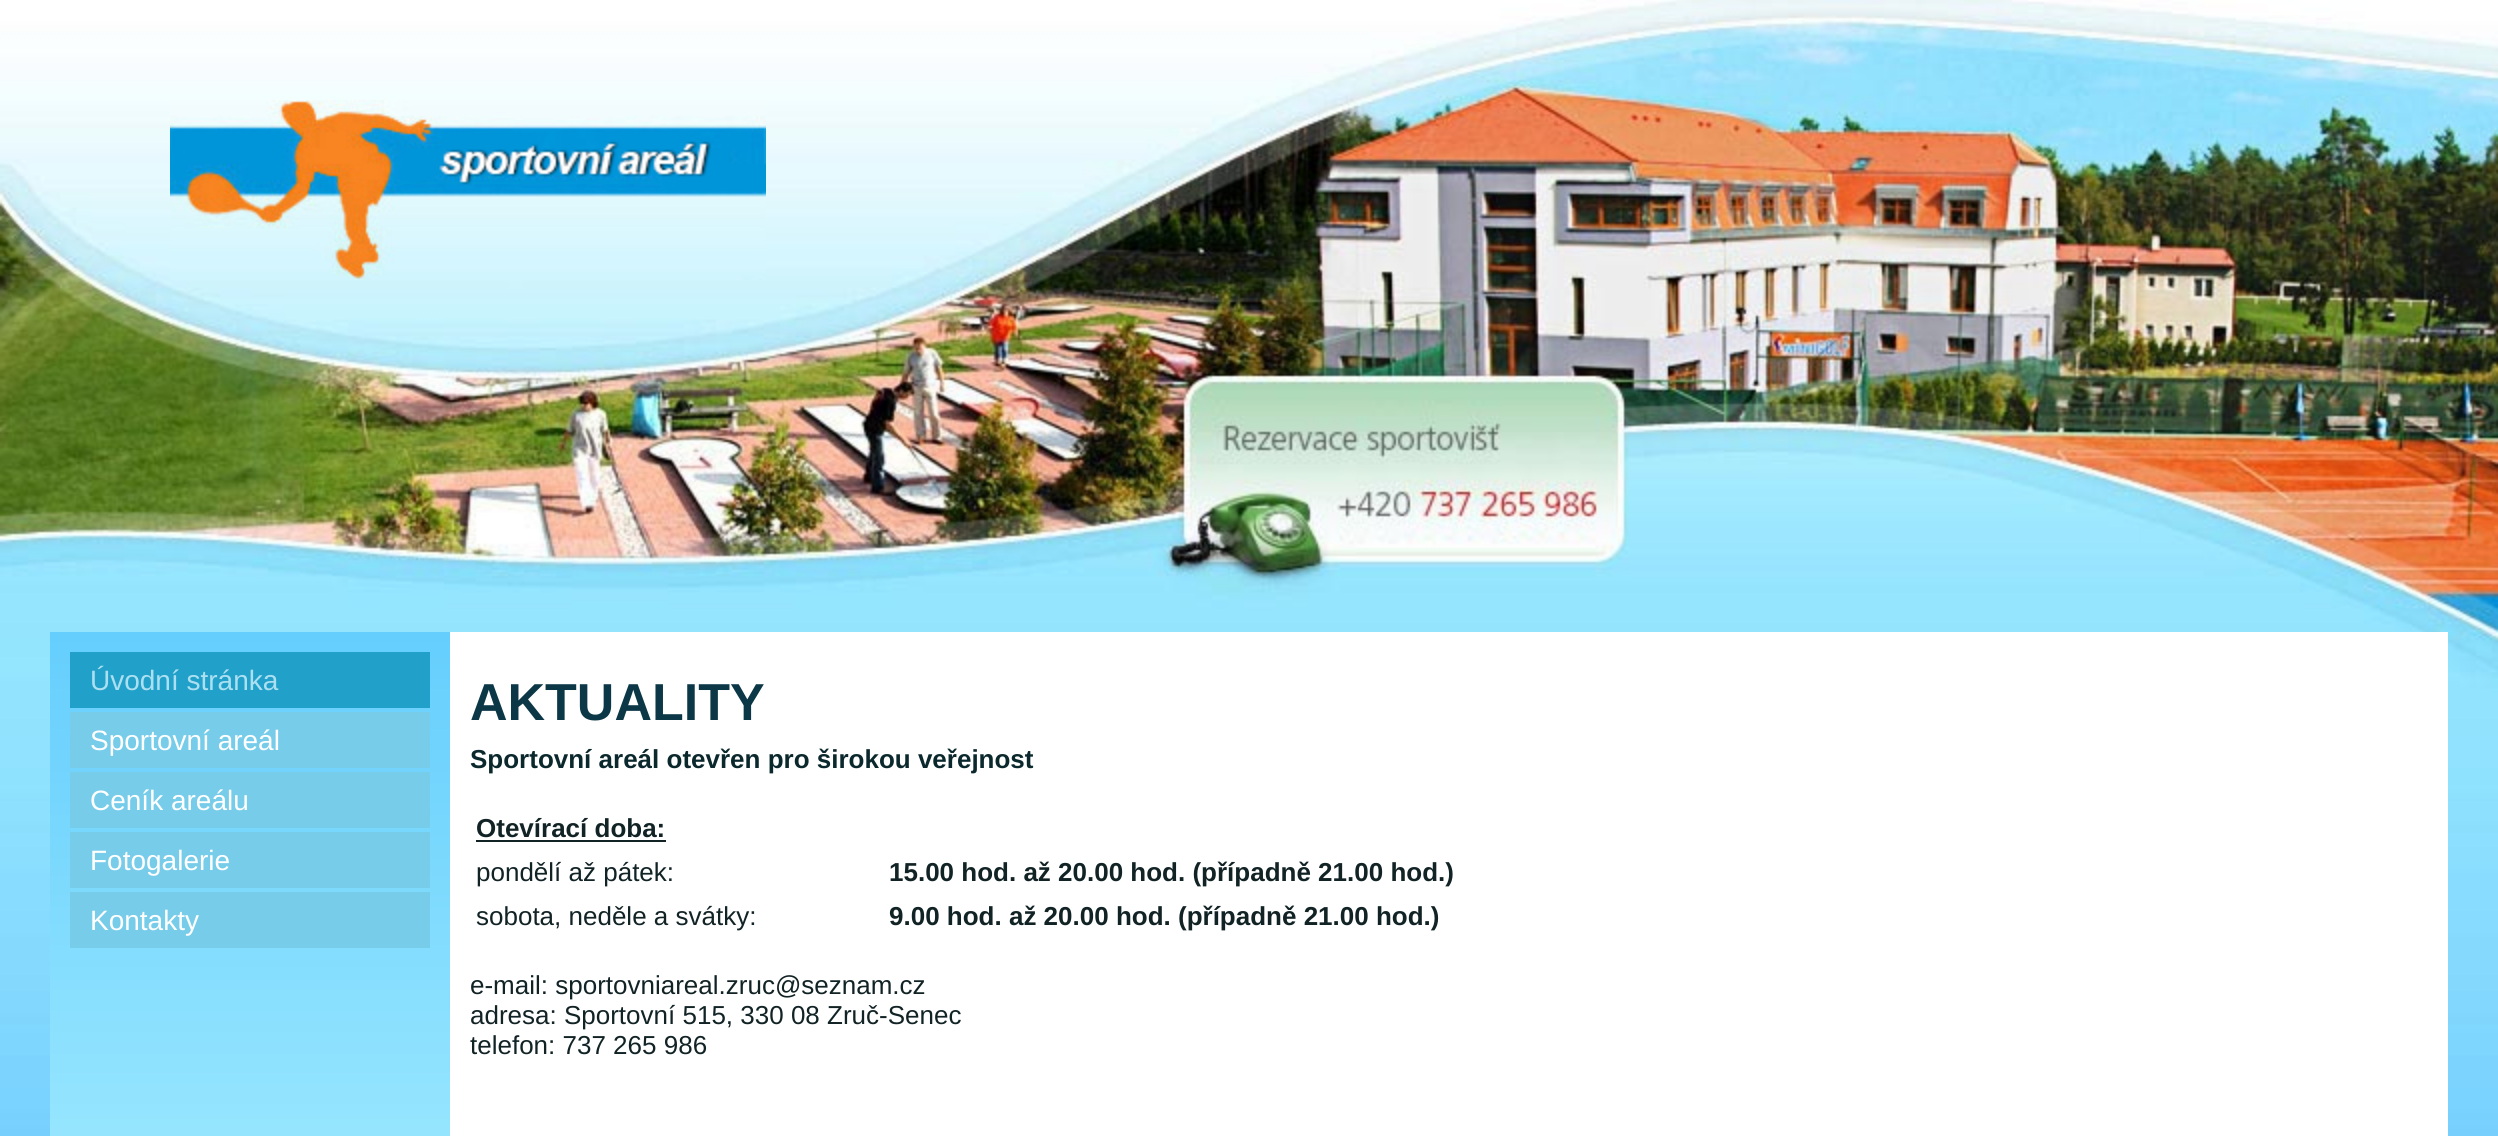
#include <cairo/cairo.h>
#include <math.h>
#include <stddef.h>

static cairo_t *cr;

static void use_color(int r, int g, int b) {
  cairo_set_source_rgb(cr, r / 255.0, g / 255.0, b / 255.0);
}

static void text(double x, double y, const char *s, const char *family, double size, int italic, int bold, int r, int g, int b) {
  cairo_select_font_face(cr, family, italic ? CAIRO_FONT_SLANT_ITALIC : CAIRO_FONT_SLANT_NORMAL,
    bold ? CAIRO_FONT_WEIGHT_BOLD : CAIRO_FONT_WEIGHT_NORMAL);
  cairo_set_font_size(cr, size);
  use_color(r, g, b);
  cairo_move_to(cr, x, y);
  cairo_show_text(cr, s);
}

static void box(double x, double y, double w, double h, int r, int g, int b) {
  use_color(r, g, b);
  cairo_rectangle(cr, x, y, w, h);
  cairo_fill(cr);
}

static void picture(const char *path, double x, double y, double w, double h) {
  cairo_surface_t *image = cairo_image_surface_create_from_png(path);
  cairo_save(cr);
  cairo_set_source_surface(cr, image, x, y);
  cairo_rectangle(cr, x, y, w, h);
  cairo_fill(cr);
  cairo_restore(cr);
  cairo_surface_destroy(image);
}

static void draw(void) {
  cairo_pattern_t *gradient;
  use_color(255, 255, 255);
  cairo_paint(cr);
  picture("img_01.png", 0, 0, 2498, 1136);
  picture("img_02.png", 170, 100, 596, 180);
  gradient = cairo_pattern_create_linear(250, 632, 250, 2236);
  cairo_pattern_add_color_stop_rgba(gradient, 0, 0.396, 0.808, 0.992, 1);
  cairo_pattern_add_color_stop_rgba(gradient, 0.31, 0.584, 0.898, 0.996, 1);
  cairo_pattern_add_color_stop_rgba(gradient, 0.97, 0.584, 0.898, 0.996, 1);
  cairo_set_source(cr, gradient);
  cairo_pattern_destroy(gradient);
  cairo_rectangle(cr, 50, 632, 400, 504);
  cairo_fill(cr);
  box(70, 652, 360, 56, 33, 160, 202);
  box(70, 712, 360, 56, 119, 204, 233);
  box(70, 772, 360, 56, 119, 204, 233);
  box(70, 832, 360, 56, 119, 204, 233);
  box(70, 892, 360, 56, 119, 204, 233);
  box(450, 632, 1998, 504, 255, 255, 255);
  box(476, 840, 190, 2, 18, 35, 38);
  text(90, 690, "Úvodní stránka", "Liberation Sans", 28, 0, 0, 172, 224, 241);
  text(90, 750, "Sportovní areál", "Liberation Sans", 28, 0, 0, 255, 255, 255);
  text(90, 810, "Ceník areálu", "Liberation Sans", 28, 0, 0, 255, 255, 255);
  text(90, 870, "Fotogalerie", "Liberation Sans", 28, 0, 0, 255, 255, 255);
  text(90, 930, "Kontakty", "Liberation Sans", 28, 0, 0, 255, 255, 255);
  text(470, 720, "AKTUALITY", "Liberation Sans", 52, 0, 1, 11, 55, 70);
  text(470, 768, "Sportovní areál otevřen pro širokou veřejnost", "Liberation Sans", 26, 0, 1, 11, 40, 45);
  text(476, 837, "Otevírací doba:", "Liberation Sans", 26, 0, 1, 18, 35, 38);
  text(476, 881, "pondělí až pátek:", "Liberation Sans", 26, 0, 0, 18, 35, 38);
  text(889, 881, "15.00 hod. až 20.00 hod. (případně 21.00 hod.)", "Liberation Sans", 26, 0, 1, 18, 35, 38);
  text(476, 925, "sobota, neděle a svátky:", "Liberation Sans", 26, 0, 0, 18, 35, 38);
  text(889, 925, "9.00 hod. až 20.00 hod. (případně 21.00 hod.)", "Liberation Sans", 26, 0, 1, 18, 35, 38);
  text(470, 994, "e-mail: sportovniareal.zruc@seznam.cz", "Liberation Sans", 26, 0, 0, 18, 35, 38);
  text(470, 1024, "adresa: Sportovní 515, 330 08 Zruč-Senec", "Liberation Sans", 26, 0, 0, 18, 35, 38);
  text(470, 1054, "telefon: 737 265 986", "Liberation Sans", 26, 0, 0, 18, 35, 38);
}

int main(void) {
  cairo_surface_t *surface = cairo_image_surface_create(CAIRO_FORMAT_RGB24, 2498, 1136);
  cr = cairo_create(surface);
  cairo_font_options_t *options = cairo_font_options_create();
  cairo_font_options_set_hint_metrics(options, CAIRO_HINT_METRICS_OFF);
  cairo_font_options_set_hint_style(options, CAIRO_HINT_STYLE_NONE);
  cairo_set_font_options(cr, options);
  cairo_set_miter_limit(cr, 4);
  draw();
  cairo_surface_write_to_png(surface, "out.png");
  cairo_font_options_destroy(options);
  cairo_destroy(cr);
  cairo_surface_destroy(surface);
  return 0;
}
